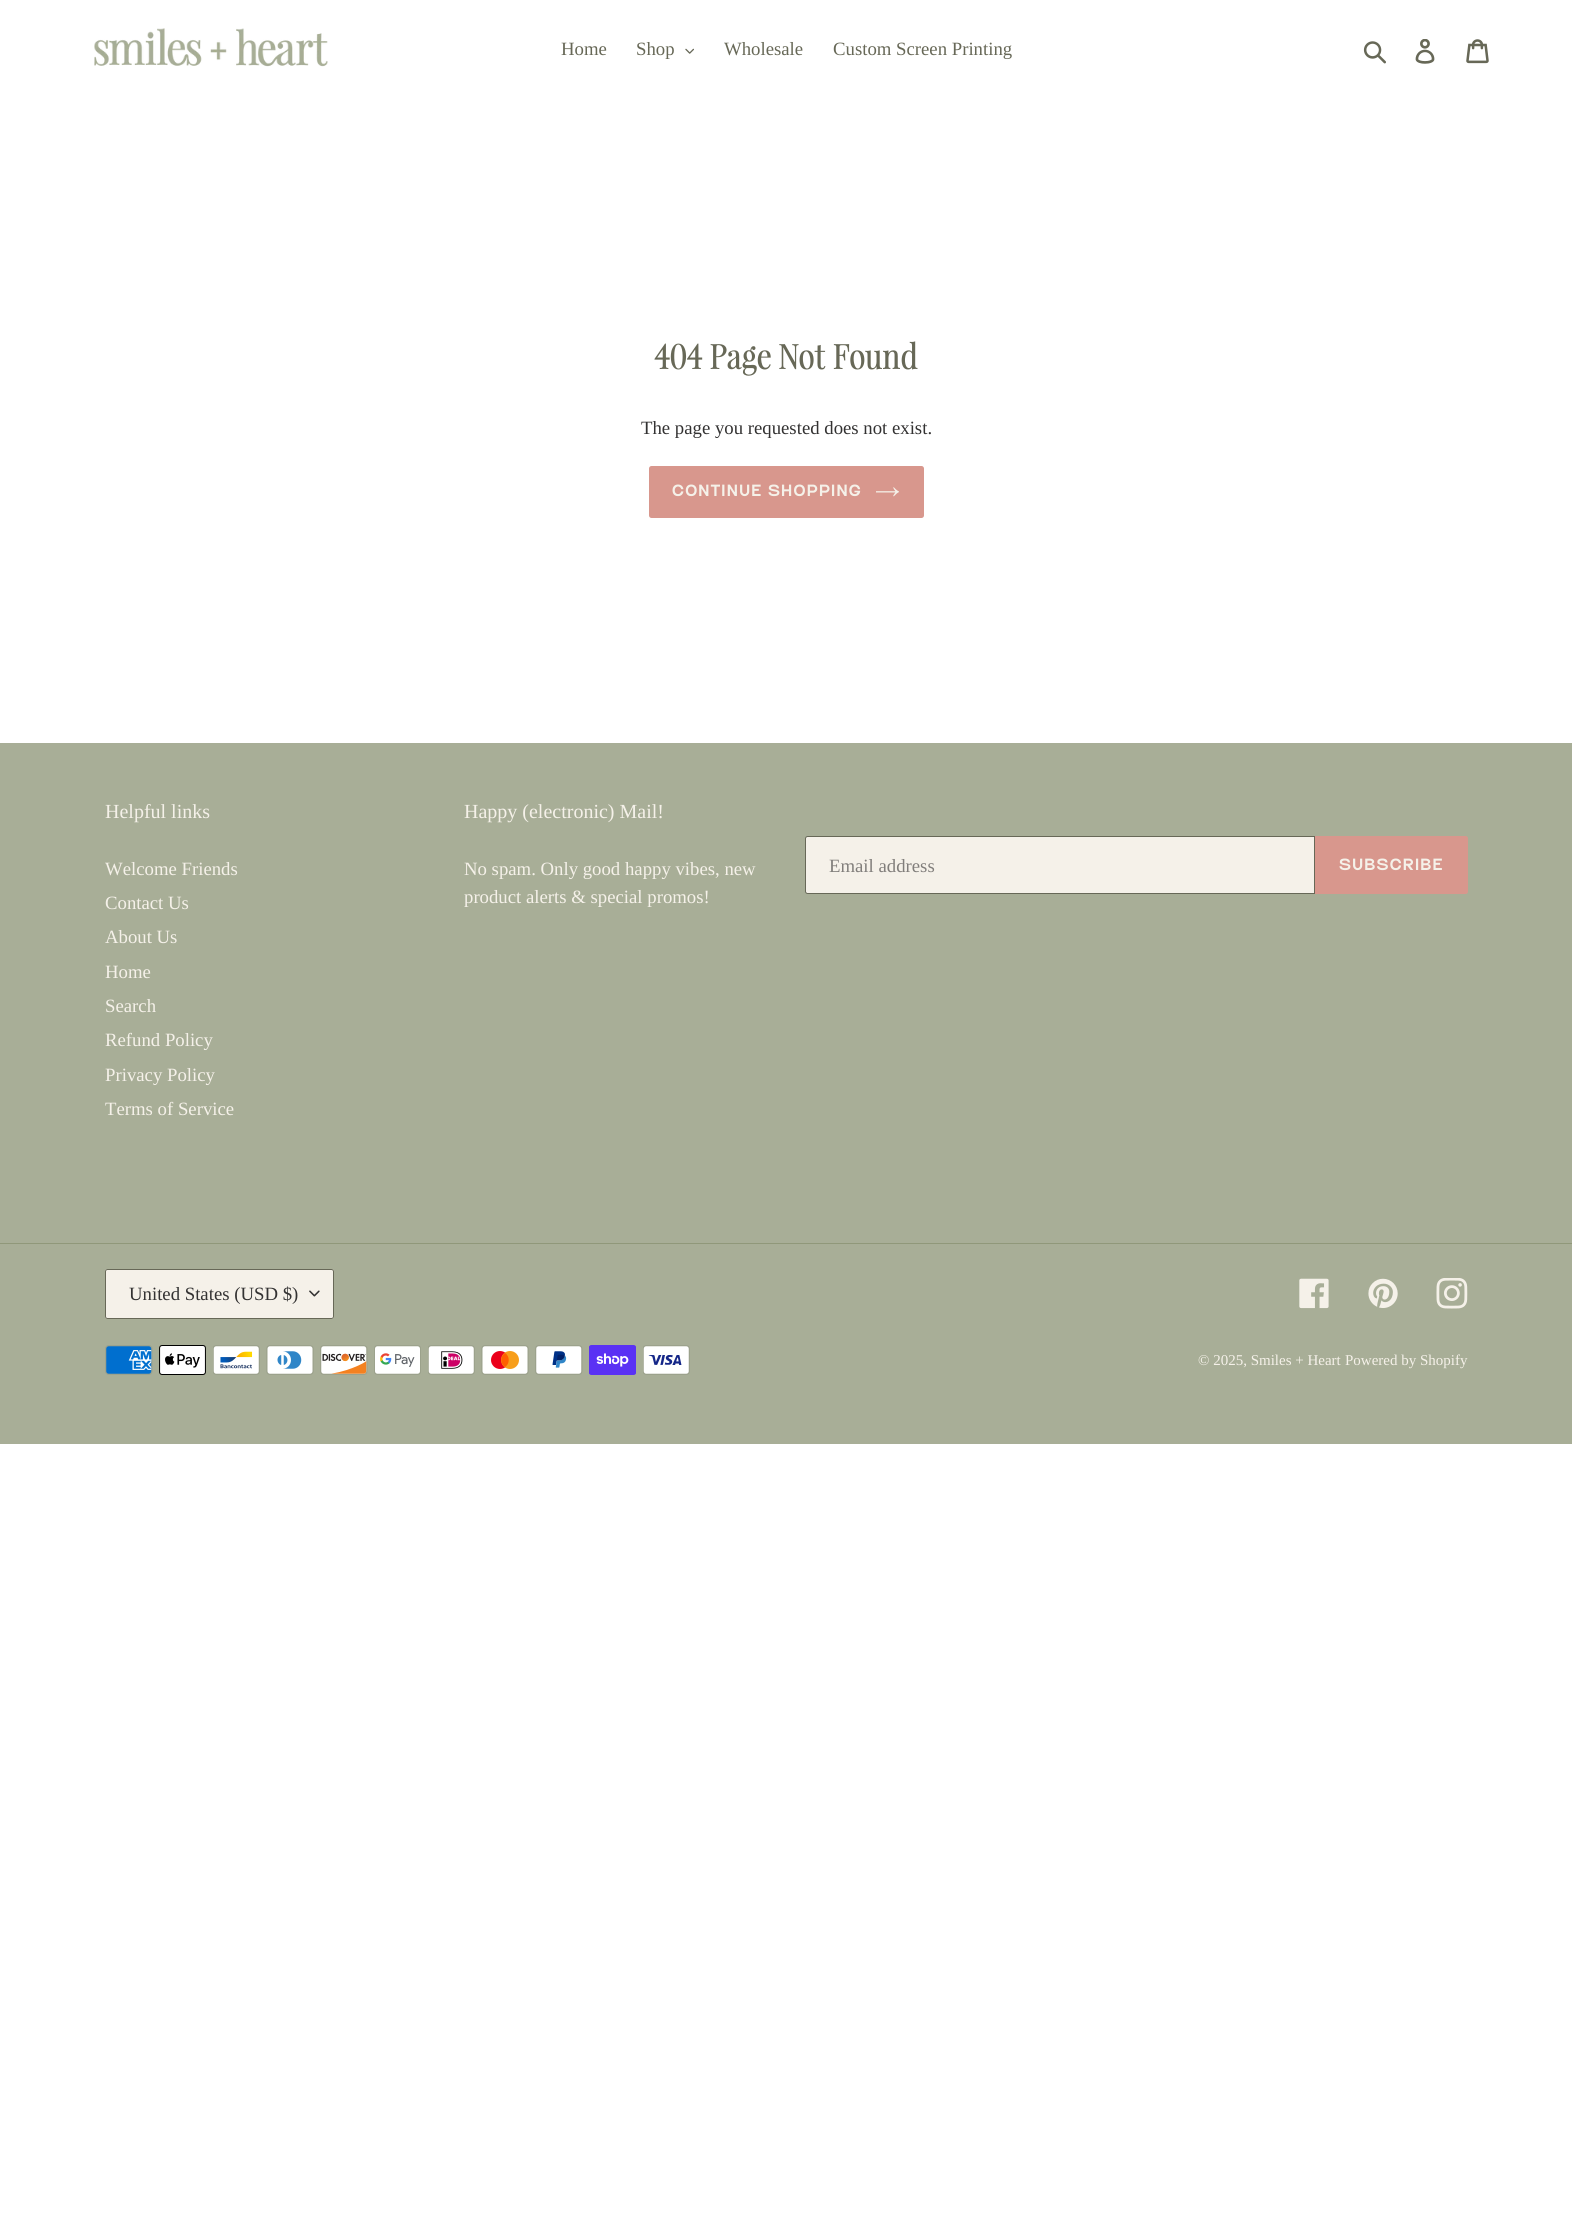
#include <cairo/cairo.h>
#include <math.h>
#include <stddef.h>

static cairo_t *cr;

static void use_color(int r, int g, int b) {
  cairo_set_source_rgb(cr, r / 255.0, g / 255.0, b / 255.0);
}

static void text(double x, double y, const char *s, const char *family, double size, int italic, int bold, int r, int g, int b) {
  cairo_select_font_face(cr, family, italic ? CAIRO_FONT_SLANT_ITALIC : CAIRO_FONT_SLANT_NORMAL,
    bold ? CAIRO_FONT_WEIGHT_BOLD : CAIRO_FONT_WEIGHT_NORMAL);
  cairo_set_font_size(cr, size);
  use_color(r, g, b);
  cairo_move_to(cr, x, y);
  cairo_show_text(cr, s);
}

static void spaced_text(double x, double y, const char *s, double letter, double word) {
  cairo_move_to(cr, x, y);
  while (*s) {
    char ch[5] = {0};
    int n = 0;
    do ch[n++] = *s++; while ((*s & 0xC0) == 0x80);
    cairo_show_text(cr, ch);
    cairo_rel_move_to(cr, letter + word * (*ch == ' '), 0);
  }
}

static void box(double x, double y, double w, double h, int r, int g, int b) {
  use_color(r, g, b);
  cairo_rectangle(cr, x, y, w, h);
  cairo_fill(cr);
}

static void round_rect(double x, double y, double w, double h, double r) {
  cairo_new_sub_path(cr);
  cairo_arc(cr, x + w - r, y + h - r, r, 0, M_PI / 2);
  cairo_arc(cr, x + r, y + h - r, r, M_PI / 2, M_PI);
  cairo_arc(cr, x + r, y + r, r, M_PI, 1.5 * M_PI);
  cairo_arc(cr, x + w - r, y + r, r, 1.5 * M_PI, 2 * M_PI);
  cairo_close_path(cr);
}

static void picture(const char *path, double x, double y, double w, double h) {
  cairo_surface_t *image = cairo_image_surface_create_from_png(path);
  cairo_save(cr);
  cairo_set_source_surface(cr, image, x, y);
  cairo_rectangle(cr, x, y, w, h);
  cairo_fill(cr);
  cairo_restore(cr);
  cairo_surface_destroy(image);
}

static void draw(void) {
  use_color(255, 255, 255);
  cairo_paint(cr);
  picture("img_01.png", 94, 28, 234, 39);
  picture("img_02.png", 685, 48, 9, 6);
  picture("img_03.png", 1363, 41, 23, 23);
  picture("img_04.png", 1415, 39, 20, 25);
  picture("img_05.png", 1466, 39, 23, 25);
  use_color(216, 151, 141);
  round_rect(649, 466, 275, 52, 2.5);
  cairo_fill(cr);
  picture("img_06.png", 876, 487, 23, 10);
  box(0, 743, 1572, 701, 168, 174, 151);
  use_color(245, 241, 233);
  cairo_new_path(cr);
  cairo_move_to(cr, 807.5, 836.5);
  cairo_line_to(cr, 1314.5, 836.5);
  cairo_line_to(cr, 1314.5, 893.5);
  cairo_line_to(cr, 807.5, 893.5);
  cairo_curve_to(cr, 806.5, 893.5, 805.5, 892.5, 805.5, 891.5);
  cairo_line_to(cr, 805.5, 838.5);
  cairo_curve_to(cr, 805.5, 837.5, 806.5, 836.5, 807.5, 836.5);
  cairo_close_path(cr);
  cairo_fill_preserve(cr);
  use_color(103, 104, 87);
  cairo_set_line_width(cr, 1);
  cairo_stroke(cr);
  use_color(216, 151, 141);
  cairo_new_path(cr);
  cairo_move_to(cr, 1315, 836);
  cairo_line_to(cr, 1465.5, 836);
  cairo_curve_to(cr, 1467, 836, 1468, 837, 1468, 838.5);
  cairo_line_to(cr, 1468, 891.5);
  cairo_curve_to(cr, 1468, 893, 1467, 894, 1465.5, 894);
  cairo_line_to(cr, 1315, 894);
  cairo_close_path(cr);
  cairo_fill(cr);
  box(0, 1243, 1572, 1, 144, 152, 122);
  use_color(245, 241, 233);
  round_rect(105, 1269, 229, 50, 2.5);
  cairo_fill(cr);
  picture("img_07.png", 309, 1290, 11, 7);
  round_rect(105.5, 1269.5, 228, 49, 2);
  use_color(103, 104, 87);
  cairo_stroke(cr);
  picture("img_08.png", 1299, 1278, 30, 31);
  picture("img_09.png", 1368, 1278, 30, 30);
  picture("img_10.png", 1436, 1278, 32, 31);
  picture("img_11.png", 105, 1345, 48, 30);
  picture("img_12.png", 159, 1345, 47, 30);
  picture("img_13.png", 213, 1345, 47, 30);
  picture("img_14.png", 266, 1345, 48, 30);
  picture("img_15.png", 320, 1345, 48, 30);
  picture("img_16.png", 374, 1345, 47, 30);
  picture("img_17.png", 428, 1345, 47, 30);
  picture("img_18.png", 481, 1345, 48, 30);
  picture("img_19.png", 535, 1345, 48, 30);
  picture("img_20.png", 589, 1345, 47, 30);
  picture("img_21.png", 643, 1345, 47, 30);
  text(561, 55, "Home", "Liberation Serif", 18.75, 0, 0, 103, 104, 87);
  text(636, 55, "Shop", "Liberation Serif", 18.75, 0, 0, 103, 104, 87);
  text(724, 55, "Wholesale", "Liberation Serif", 18.75, 0, 0, 103, 104, 87);
  text(833, 55, "Custom Screen Printing", "Liberation Serif", 18.75, 0, 0, 103, 104, 87);
  text(654, 369, "404 Page Not Found", "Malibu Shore", 56.25, 0, 0, 103, 104, 87);
  text(641, 434, "The page you requested does not exist.", "Liberation Serif", 18.75, 0, 0, 51, 50, 50);
  cairo_select_font_face(cr, "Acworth", CAIRO_FONT_SLANT_NORMAL, CAIRO_FONT_WEIGHT_BOLD);
  cairo_set_font_size(cr, 16.25);
  use_color(245, 241, 233);
  spaced_text(672, 496, "CONTINUE SHOPPING", 1.25, 0);
  text(105, 818, "Helpful links", "Liberation Serif", 20, 0, 0, 245, 241, 233);
  text(105, 875, "Welcome Friends", "Liberation Serif", 18.75, 0, 0, 245, 241, 233);
  text(105, 909, "Contact Us", "Liberation Serif", 18.75, 0, 0, 245, 241, 233);
  text(105, 943, "About Us", "Liberation Serif", 18.75, 0, 0, 245, 241, 233);
  text(105, 978, "Home", "Liberation Serif", 18.75, 0, 0, 245, 241, 233);
  text(105, 1012, "Search", "Liberation Serif", 18.75, 0, 0, 245, 241, 233);
  text(105, 1046, "Refund Policy", "Liberation Serif", 18.75, 0, 0, 245, 241, 233);
  text(105, 1081, "Privacy Policy", "Liberation Serif", 18.75, 0, 0, 245, 241, 233);
  text(105, 1115, "Terms of Service", "Liberation Serif", 18.75, 0, 0, 245, 241, 233);
  text(464, 818, "Happy (electronic) Mail!", "Liberation Serif", 20, 0, 0, 245, 241, 233);
  text(464, 875, "No spam. Only good happy vibes, new", "Liberation Serif", 18.75, 0, 0, 245, 241, 233);
  text(464, 903, "product alerts & special promos!", "Liberation Serif", 18.75, 0, 0, 245, 241, 233);
  text(829, 872, "Email address", "Liberation Serif", 18.75, 0, 0, 129, 126, 123);
  cairo_select_font_face(cr, "Acworth", CAIRO_FONT_SLANT_NORMAL, CAIRO_FONT_WEIGHT_BOLD);
  cairo_set_font_size(cr, 16.25);
  use_color(245, 241, 233);
  spaced_text(1339, 870, "SUBSCRIBE", 1.25, 0);
  text(129, 1300, "United States (USD $)", "Liberation Serif", 18.75, 0, 0, 51, 50, 50);
  text(1198, 1365, "© 2025, Smiles + Heart", "Liberation Serif", 15, 0, 0, 245, 241, 233);
  text(1345, 1365, "Powered by Shopify", "Liberation Serif", 15, 0, 0, 245, 241, 233);
}

int main(void) {
  cairo_surface_t *surface = cairo_image_surface_create(CAIRO_FORMAT_RGB24, 1572, 2221);
  cr = cairo_create(surface);
  cairo_font_options_t *options = cairo_font_options_create();
  cairo_font_options_set_hint_metrics(options, CAIRO_HINT_METRICS_OFF);
  cairo_font_options_set_hint_style(options, CAIRO_HINT_STYLE_NONE);
  cairo_set_font_options(cr, options);
  cairo_set_miter_limit(cr, 4);
  draw();
  cairo_surface_write_to_png(surface, "out.png");
  cairo_font_options_destroy(options);
  cairo_destroy(cr);
  cairo_surface_destroy(surface);
  return 0;
}
